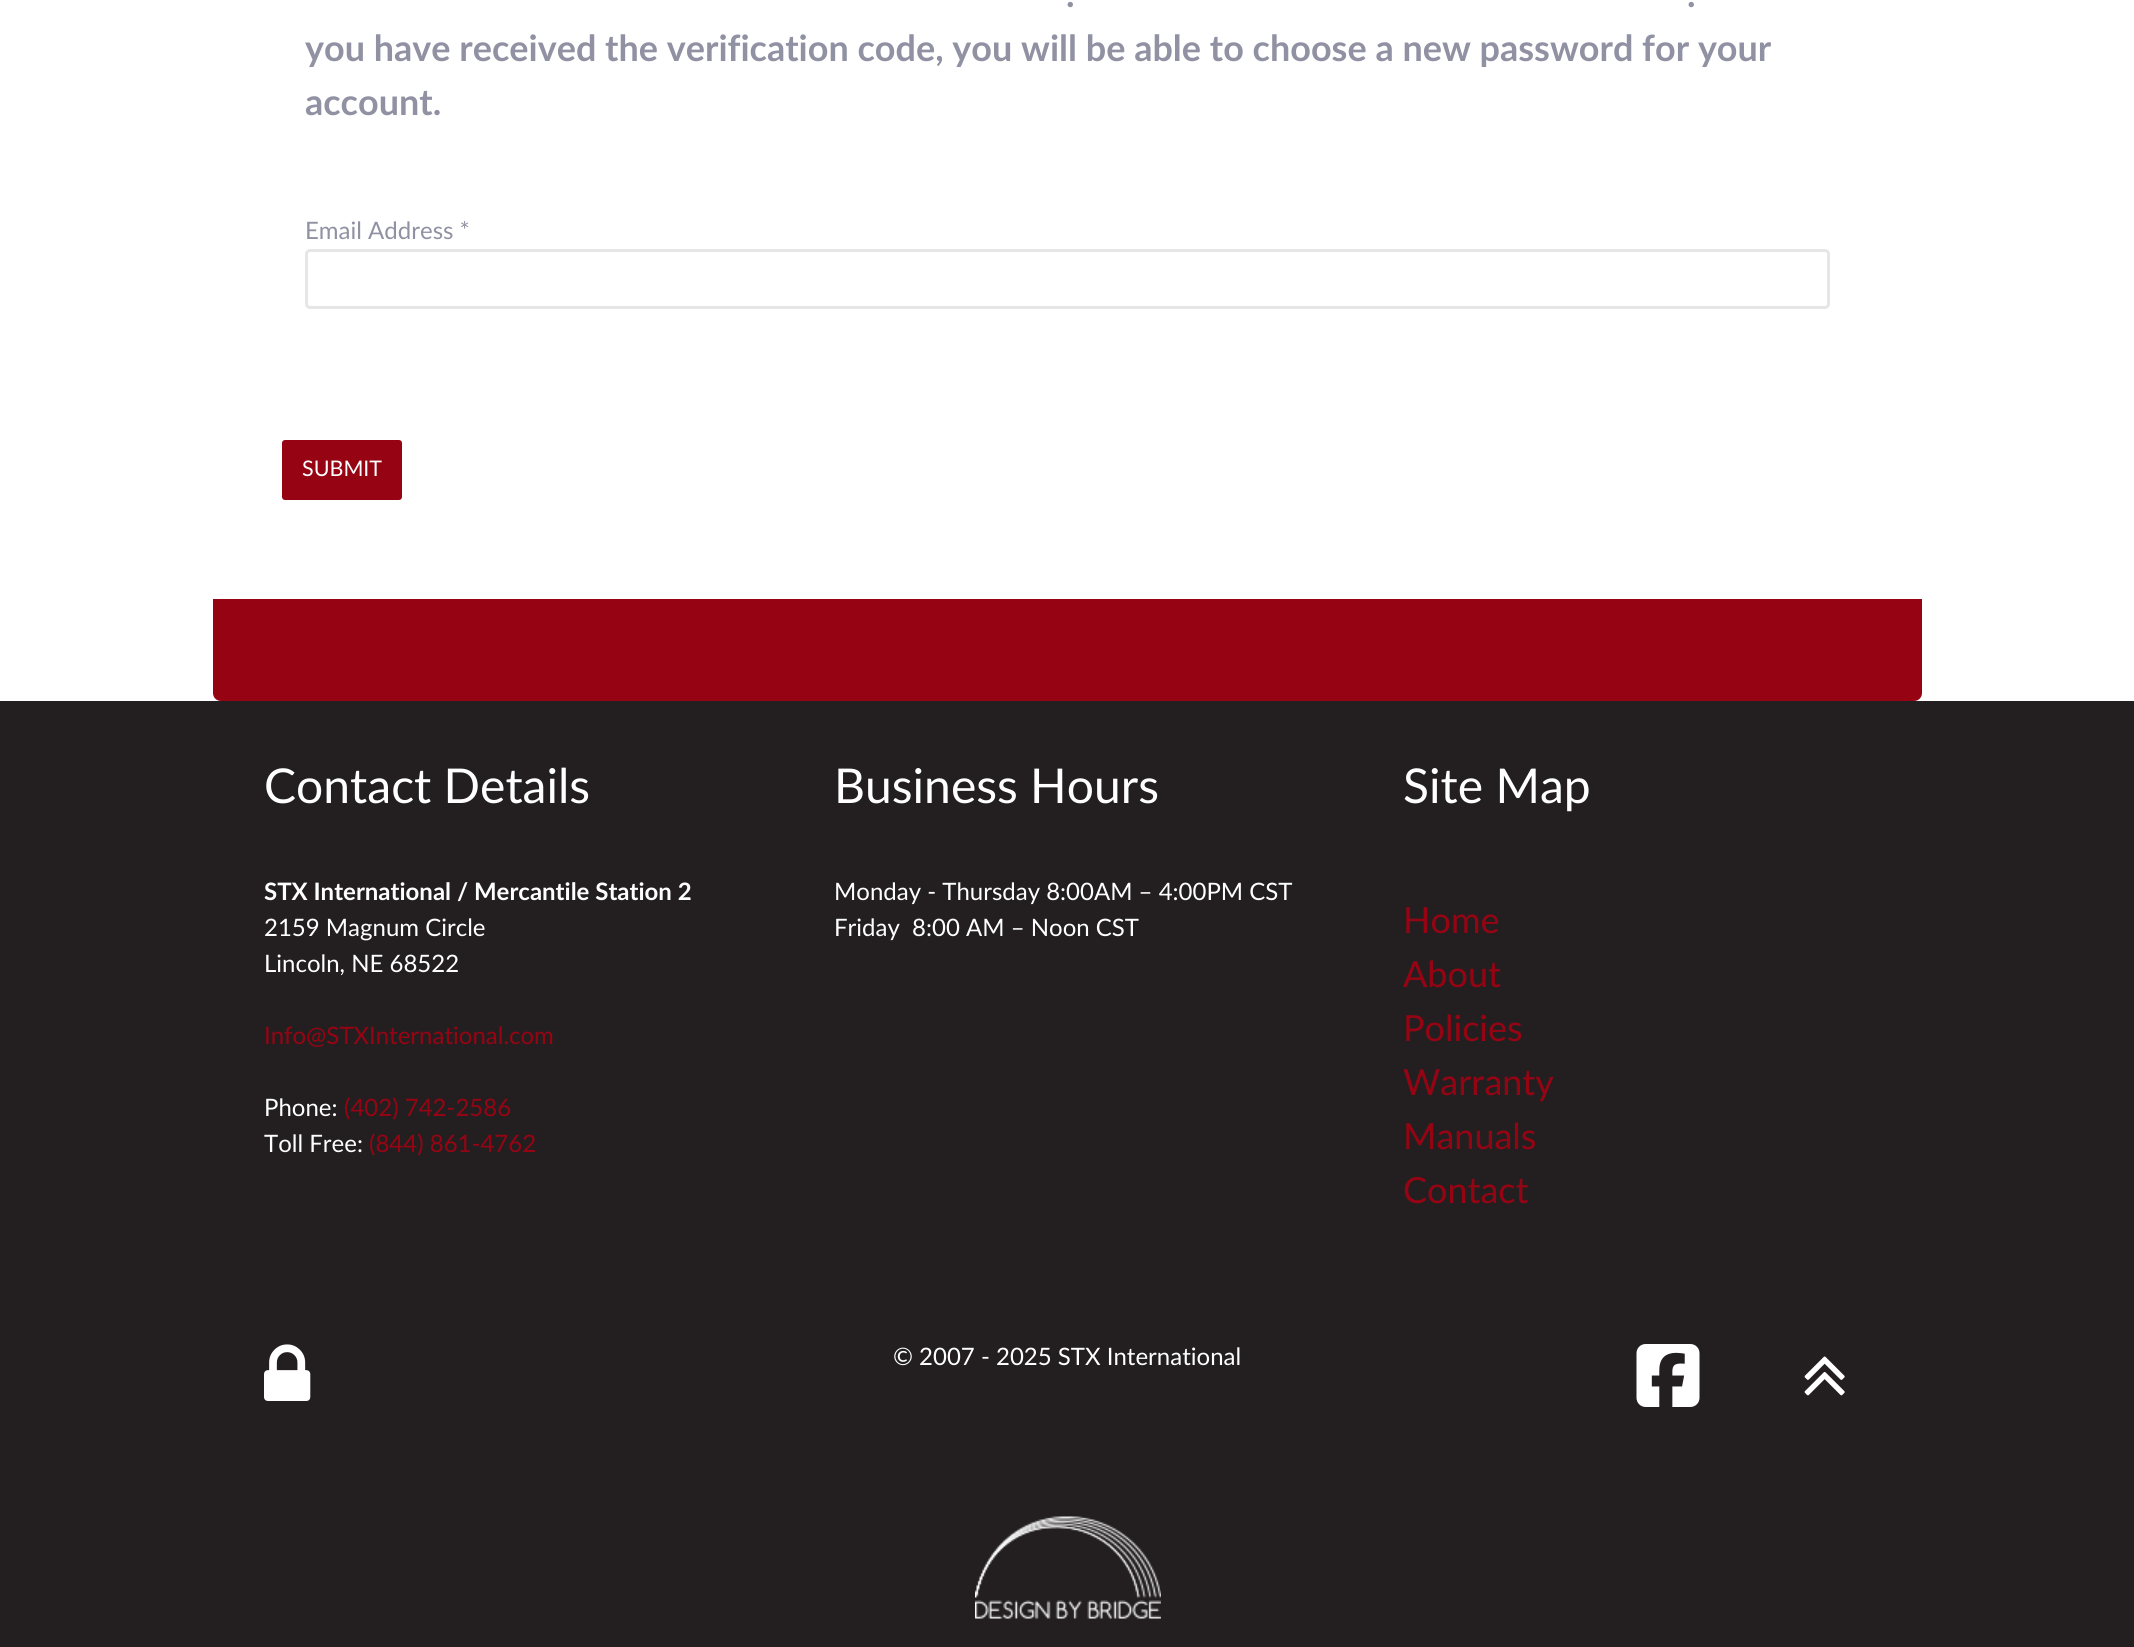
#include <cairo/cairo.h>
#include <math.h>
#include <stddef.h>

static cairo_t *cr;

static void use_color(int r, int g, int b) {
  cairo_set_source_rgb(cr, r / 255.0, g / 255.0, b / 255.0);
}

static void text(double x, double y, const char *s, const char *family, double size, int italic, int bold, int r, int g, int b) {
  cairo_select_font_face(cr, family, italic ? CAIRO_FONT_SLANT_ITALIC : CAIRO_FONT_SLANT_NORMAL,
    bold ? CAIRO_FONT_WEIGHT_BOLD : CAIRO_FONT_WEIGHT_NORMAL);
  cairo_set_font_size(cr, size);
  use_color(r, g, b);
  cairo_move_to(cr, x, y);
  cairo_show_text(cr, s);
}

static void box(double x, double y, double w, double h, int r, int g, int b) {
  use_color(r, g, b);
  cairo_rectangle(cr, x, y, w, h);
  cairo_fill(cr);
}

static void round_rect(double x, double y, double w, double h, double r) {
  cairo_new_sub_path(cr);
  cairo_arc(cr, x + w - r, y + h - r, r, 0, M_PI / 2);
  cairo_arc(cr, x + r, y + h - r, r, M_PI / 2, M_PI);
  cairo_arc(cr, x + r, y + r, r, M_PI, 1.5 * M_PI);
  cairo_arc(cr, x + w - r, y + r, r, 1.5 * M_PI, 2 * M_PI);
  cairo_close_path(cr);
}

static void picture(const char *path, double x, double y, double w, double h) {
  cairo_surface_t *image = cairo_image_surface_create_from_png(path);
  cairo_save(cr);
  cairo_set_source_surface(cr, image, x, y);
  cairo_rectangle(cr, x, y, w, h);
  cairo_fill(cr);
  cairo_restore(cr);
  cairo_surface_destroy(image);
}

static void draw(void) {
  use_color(255, 255, 255);
  cairo_paint(cr);
  round_rect(306.5, 250.5, 1522, 57, 3.5);
  use_color(230, 230, 230);
  cairo_set_line_width(cr, 3);
  cairo_stroke(cr);
  use_color(150, 4, 19);
  round_rect(283, 441, 118, 58, 2);
  cairo_fill_preserve(cr);
  cairo_set_line_width(cr, 2);
  cairo_stroke(cr);
  cairo_new_path(cr);
  cairo_move_to(cr, 213, 599);
  cairo_line_to(cr, 1922, 599);
  cairo_line_to(cr, 1922, 693);
  cairo_curve_to(cr, 1922, 697.5, 1918.5, 701, 1914, 701);
  cairo_line_to(cr, 221, 701);
  cairo_curve_to(cr, 216.5, 701, 213, 697.5, 213, 693);
  cairo_close_path(cr);
  cairo_fill(cr);
  box(0, 701, 2134, 946, 35, 31, 32);
  picture("img_01.png", 264, 1344, 47, 57);
  picture("img_02.png", 1636, 1344, 64, 63);
  picture("img_03.png", 1804, 1356, 41, 40);
  picture("img_04.png", 975, 1516, 186, 103);
  text(1066, 7, ".", "Lato", 36, 0, 1, 144, 145, 162);
  text(1687, 7, ".", "Lato", 36, 0, 1, 144, 145, 162);
  text(305, 61, "you have received the verification code, you will be able to choose a new password for your", "Lato", 36, 0, 1, 144, 145, 162);
  text(305, 115, "account.", "Lato", 36, 0, 1, 144, 145, 162);
  text(305, 239, "Email Address *", "Lato", 24, 0, 0, 144, 145, 162);
  text(302, 476, "SUBMIT", "Lato", 21.5, 0, 0, 255, 255, 255);
  text(264, 803, "Contact Details", "Lato", 48, 0, 0, 255, 255, 255);
  text(264, 900, "STX International / Mercantile Station 2", "Lato", 24, 0, 1, 255, 255, 255);
  text(264, 936, "2159 Magnum Circle", "Lato", 24, 0, 0, 255, 255, 255);
  text(264, 972, "Lincoln, NE 68522", "Lato", 24, 0, 0, 255, 255, 255);
  text(264, 1044, "Info@STXInternational.com", "Lato", 24, 0, 0, 150, 4, 19);
  text(264, 1116, "Phone:", "Lato", 24, 0, 0, 255, 255, 255);
  text(344, 1116, "(402) 742-2586", "Lato", 24, 0, 0, 150, 4, 19);
  text(264, 1152, "Toll Free:", "Lato", 24, 0, 0, 255, 255, 255);
  text(369, 1152, "(844) 861-4762", "Lato", 24, 0, 0, 150, 4, 19);
  text(834, 803, "Business Hours", "Lato", 48, 0, 0, 255, 255, 255);
  text(834, 900, "Monday - Thursday 8:00AM – 4:00PM CST", "Lato", 24, 0, 0, 255, 255, 255);
  text(834, 936, "Friday  8:00 AM – Noon CST", "Lato", 24, 0, 0, 255, 255, 255);
  text(1403, 803, "Site Map", "Lato", 48, 0, 0, 255, 255, 255);
  text(1403, 933, "Home", "Lato", 36, 0, 0, 150, 4, 19);
  text(1403, 987, "About", "Lato", 36, 0, 0, 150, 4, 19);
  text(1403, 1041, "Policies", "Lato", 36, 0, 0, 150, 4, 19);
  text(1403, 1095, "Warranty", "Lato", 36, 0, 0, 150, 4, 19);
  text(1403, 1149, "Manuals", "Lato", 36, 0, 0, 150, 4, 19);
  text(1403, 1203, "Contact", "Lato", 36, 0, 0, 150, 4, 19);
  text(893, 1365, "© 2007 - 2025 STX International", "Lato", 24, 0, 0, 255, 255, 255);
}

int main(void) {
  cairo_surface_t *surface = cairo_image_surface_create(CAIRO_FORMAT_RGB24, 2134, 1647);
  cr = cairo_create(surface);
  cairo_font_options_t *options = cairo_font_options_create();
  cairo_font_options_set_hint_metrics(options, CAIRO_HINT_METRICS_OFF);
  cairo_font_options_set_hint_style(options, CAIRO_HINT_STYLE_NONE);
  cairo_set_font_options(cr, options);
  cairo_set_miter_limit(cr, 4);
  draw();
  cairo_surface_write_to_png(surface, "out.png");
  cairo_font_options_destroy(options);
  cairo_destroy(cr);
  cairo_surface_destroy(surface);
  return 0;
}
